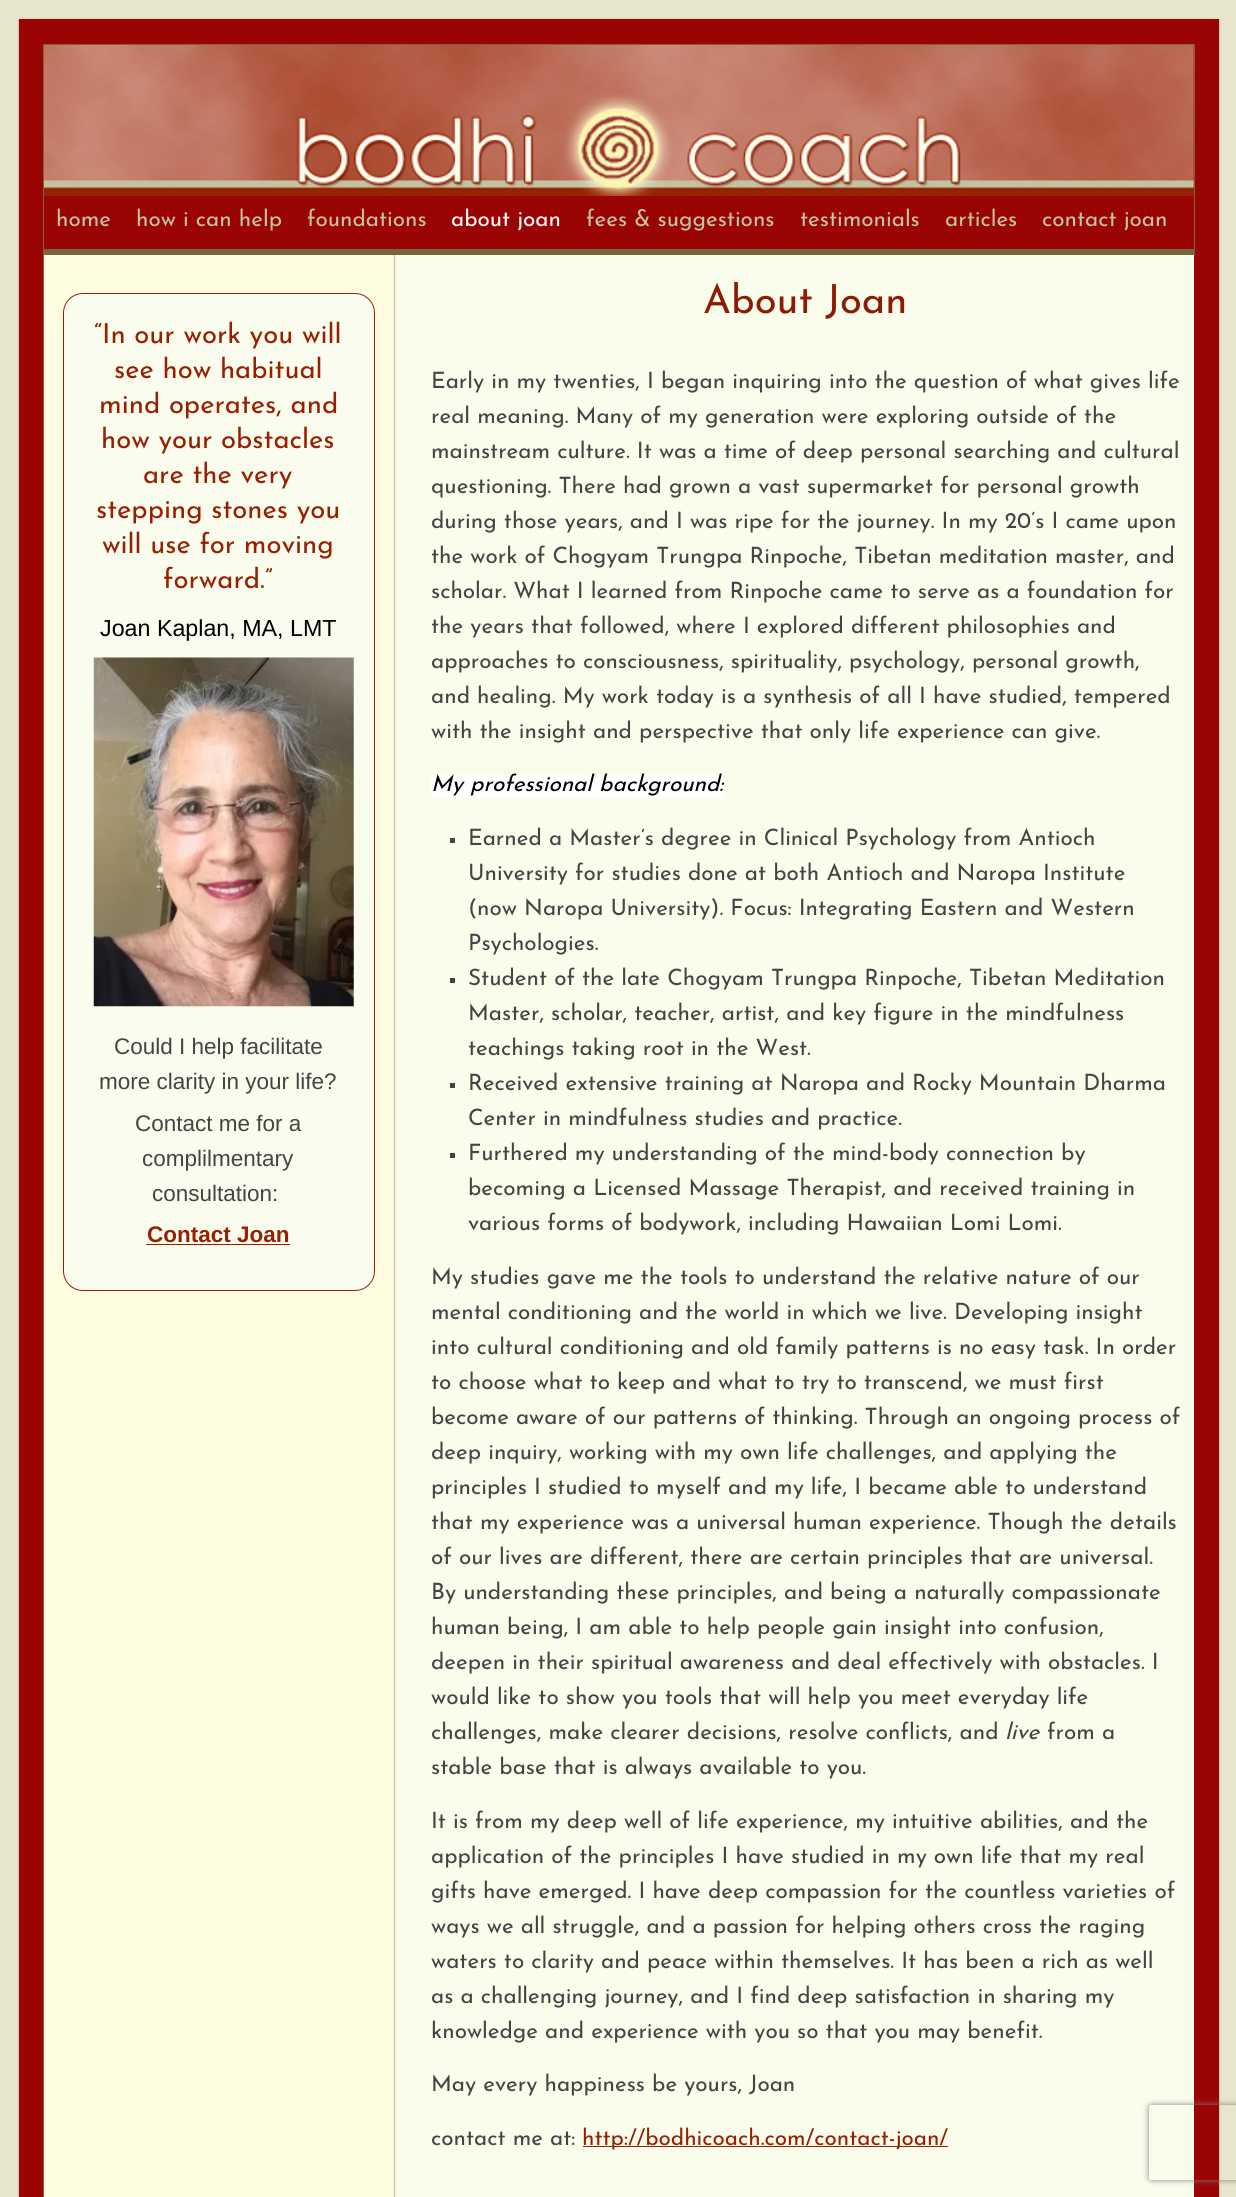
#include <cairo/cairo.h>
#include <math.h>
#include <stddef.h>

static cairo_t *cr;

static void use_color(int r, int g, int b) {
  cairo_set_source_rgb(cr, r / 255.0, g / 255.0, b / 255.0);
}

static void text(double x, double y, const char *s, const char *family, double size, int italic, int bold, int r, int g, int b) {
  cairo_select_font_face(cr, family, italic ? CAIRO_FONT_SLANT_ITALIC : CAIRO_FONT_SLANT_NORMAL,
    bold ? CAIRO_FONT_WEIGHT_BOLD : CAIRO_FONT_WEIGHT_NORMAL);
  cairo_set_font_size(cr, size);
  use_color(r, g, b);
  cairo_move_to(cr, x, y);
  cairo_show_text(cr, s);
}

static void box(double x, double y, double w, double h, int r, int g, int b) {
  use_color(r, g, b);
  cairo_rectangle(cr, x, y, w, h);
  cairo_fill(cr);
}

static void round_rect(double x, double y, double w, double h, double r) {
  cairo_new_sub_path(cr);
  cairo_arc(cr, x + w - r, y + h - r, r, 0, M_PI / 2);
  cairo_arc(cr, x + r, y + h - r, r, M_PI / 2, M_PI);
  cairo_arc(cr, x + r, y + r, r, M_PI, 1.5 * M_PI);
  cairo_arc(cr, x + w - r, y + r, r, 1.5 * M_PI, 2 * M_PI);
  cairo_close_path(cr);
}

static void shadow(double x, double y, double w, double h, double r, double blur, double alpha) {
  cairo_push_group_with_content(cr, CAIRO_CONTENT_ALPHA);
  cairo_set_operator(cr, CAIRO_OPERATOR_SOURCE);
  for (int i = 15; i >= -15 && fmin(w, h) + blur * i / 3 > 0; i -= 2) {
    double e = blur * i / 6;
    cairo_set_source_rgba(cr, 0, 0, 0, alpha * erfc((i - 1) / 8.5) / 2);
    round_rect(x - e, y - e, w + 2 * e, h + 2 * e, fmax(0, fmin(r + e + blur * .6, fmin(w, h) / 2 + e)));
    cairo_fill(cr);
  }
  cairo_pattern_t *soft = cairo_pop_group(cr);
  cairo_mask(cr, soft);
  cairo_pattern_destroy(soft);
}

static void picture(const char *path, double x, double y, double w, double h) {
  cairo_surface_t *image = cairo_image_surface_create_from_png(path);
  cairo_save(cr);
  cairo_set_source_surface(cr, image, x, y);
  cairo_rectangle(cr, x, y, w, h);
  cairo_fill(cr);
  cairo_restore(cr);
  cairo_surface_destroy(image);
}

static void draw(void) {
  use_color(231, 229, 203);
  cairo_paint(cr);
  use_color(153, 153, 153);
  shadow(19, 20, 1200, 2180, 0, 1, 1);
  box(19, 19, 1200, 2178, 154, 5, 3);
  picture("img_01.png", 44, 45, 1150, 151);
  box(43, 44, 1152, 1, 120, 100, 62);
  box(1194, 44, 1, 211, 120, 100, 62);
  box(43, 44, 1, 152, 120, 100, 62);
  box(43, 249, 1152, 6, 120, 100, 62);
  box(43, 196, 1, 59, 120, 100, 62);
  box(545, 255, 649, 1942, 250, 252, 236);
  picture("img_02.png", 43, 255, 502, 1942);
  use_color(250, 252, 238);
  round_rect(63.5, 293.5, 311, 997, 19.5);
  cairo_fill_preserve(cr);
  use_color(151, 33, 5);
  cairo_set_line_width(cr, 1);
  cairo_stroke(cr);
  picture("img_03.png", 93, 657, 261, 350);
  box(146, 1244, 144, 1, 151, 32, 2);
  box(431, 775, 292, 23, 255, 255, 255);
  box(450, 838, 5, 5, 68, 68, 68);
  box(450, 978, 5, 5, 68, 68, 68);
  box(450, 1083, 5, 5, 68, 68, 68);
  box(450, 1153, 5, 5, 68, 68, 68);
  box(583, 2146, 365, 1, 151, 32, 2);
  cairo_save(cr);
  cairo_set_fill_rule(cr, CAIRO_FILL_RULE_EVEN_ODD);
  cairo_new_path(cr);
  cairo_move_to(cr, 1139, 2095);
  cairo_line_to(cr, 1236, 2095);
  cairo_line_to(cr, 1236, 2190);
  cairo_line_to(cr, 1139, 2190);
  cairo_close_path(cr);
  cairo_move_to(cr, 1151.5, 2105);
  cairo_line_to(cr, 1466.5, 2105);
  cairo_curve_to(cr, 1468, 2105, 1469, 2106, 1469, 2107.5);
  cairo_line_to(cr, 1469, 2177.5);
  cairo_curve_to(cr, 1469, 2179, 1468, 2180, 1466.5, 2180);
  cairo_line_to(cr, 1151.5, 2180);
  cairo_curve_to(cr, 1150, 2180, 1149, 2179, 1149, 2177.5);
  cairo_line_to(cr, 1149, 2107.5);
  cairo_curve_to(cr, 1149, 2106, 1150, 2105, 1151.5, 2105);
  cairo_close_path(cr);
  cairo_clip(cr);
  use_color(128, 128, 128);
  shadow(1149, 2105, 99, 75, 2.5, 3, 1);
  cairo_restore(cr);
  text(56, 226, "home", "Josefin Sans Thin", 22.5, 0, 0, 193, 194, 160);
  text(136, 226, "how i can help", "Josefin Sans Thin", 22.5, 0, 0, 193, 194, 160);
  text(307, 226, "foundations", "Josefin Sans Thin", 22.5, 0, 0, 193, 194, 160);
  text(451, 226, "about joan", "Josefin Sans Thin", 22.5, 0, 0, 255, 255, 255);
  text(586, 226, "fees & suggestions", "Josefin Sans Thin", 22.5, 0, 0, 193, 194, 160);
  text(800, 226, "testimonials", "Josefin Sans Thin", 22.5, 0, 0, 193, 194, 160);
  text(945, 226, "articles", "Josefin Sans Thin", 22.5, 0, 0, 193, 194, 160);
  text(1042, 226, "contact joan", "Josefin Sans Thin", 22.5, 0, 0, 193, 194, 160);
  text(94, 343, "“In our work you will", "Josefin Sans Thin", 27.5, 0, 0, 151, 32, 2);
  text(114, 378, "see how habitual", "Josefin Sans Thin", 27.5, 0, 0, 151, 32, 2);
  text(99, 413, "mind operates, and", "Josefin Sans Thin", 27.5, 0, 0, 151, 32, 2);
  text(101, 448, "how your obstacles", "Josefin Sans Thin", 27.5, 0, 0, 151, 32, 2);
  text(143, 483, "are the very", "Josefin Sans Thin", 27.5, 0, 0, 151, 32, 2);
  text(96, 518, "stepping stones you", "Josefin Sans Thin", 27.5, 0, 0, 151, 32, 2);
  text(102, 553, "will use for moving", "Josefin Sans Thin", 27.5, 0, 0, 151, 32, 2);
  text(163, 588, "forward.”", "Josefin Sans Thin", 27.5, 0, 0, 151, 32, 2);
  text(100, 636, "Joan Kaplan, MA, LMT", "Liberation Sans", 23.25, 0, 0, 0, 0, 0);
  text(114, 1054, "Could I help facilitate", "Liberation Sans", 22.5, 0, 0, 68, 68, 68);
  text(99, 1089, "more clarity in your life?", "Liberation Sans", 22.5, 0, 0, 68, 68, 68);
  text(135, 1131, "Contact me for a", "Liberation Sans", 22.5, 0, 0, 68, 68, 68);
  text(142, 1166, "complilmentary", "Liberation Sans", 22.5, 0, 0, 68, 68, 68);
  text(152, 1201, "consultation:", "Liberation Sans", 22.5, 0, 0, 68, 68, 68);
  text(147, 1242, "Contact Joan", "Liberation Sans", 22.5, 0, 1, 151, 32, 2);
  text(703, 313, "About Joan", "Josefin Sans Thin", 40, 0, 0, 143, 26, 2);
  text(431, 388, "Early in my twenties, I began inquiring into the question of what gives life", "Josefin Sans Thin", 22.5, 0, 0, 68, 68, 68);
  text(431, 423, "real meaning. Many of my generation were exploring outside of the", "Josefin Sans Thin", 22.5, 0, 0, 68, 68, 68);
  text(431, 458, "mainstream culture. It was a time of deep personal searching and cultural", "Josefin Sans Thin", 22.5, 0, 0, 68, 68, 68);
  text(431, 493, "questioning. There had grown a vast supermarket for personal growth", "Josefin Sans Thin", 22.5, 0, 0, 68, 68, 68);
  text(431, 528, "during those years, and I was ripe for the journey. In my 20’s I came upon", "Josefin Sans Thin", 22.5, 0, 0, 68, 68, 68);
  text(431, 563, "the work of Chogyam Trungpa Rinpoche, Tibetan meditation master, and", "Josefin Sans Thin", 22.5, 0, 0, 68, 68, 68);
  text(431, 598, "scholar. What I learned from Rinpoche came to serve as a foundation for", "Josefin Sans Thin", 22.5, 0, 0, 68, 68, 68);
  text(431, 633, "the years that followed, where I explored different philosophies and", "Josefin Sans Thin", 22.5, 0, 0, 68, 68, 68);
  text(431, 668, "approaches to consciousness, spirituality, psychology, personal growth,", "Josefin Sans Thin", 22.5, 0, 0, 68, 68, 68);
  text(431, 703, "and healing. My work today is a synthesis of all I have studied, tempered", "Josefin Sans Thin", 22.5, 0, 0, 68, 68, 68);
  text(431, 738, "with the insight and perspective that only life experience can give.", "Josefin Sans Thin", 22.5, 0, 0, 68, 68, 68);
  text(431, 791, "My professional background:", "Josefin Sans Thin", 22.5, 1, 0, 0, 0, 0);
  text(468, 845, "Earned a Master’s degree in Clinical Psychology from Antioch", "Josefin Sans Thin", 22.5, 0, 0, 68, 68, 68);
  text(468, 880, "University for studies done at both Antioch and Naropa Institute", "Josefin Sans Thin", 22.5, 0, 0, 68, 68, 68);
  text(468, 915, "(now Naropa University). Focus: Integrating Eastern and Western", "Josefin Sans Thin", 22.5, 0, 0, 68, 68, 68);
  text(468, 950, "Psychologies.", "Josefin Sans Thin", 22.5, 0, 0, 68, 68, 68);
  text(468, 985, "Student of the late Chogyam Trungpa Rinpoche, Tibetan Meditation", "Josefin Sans Thin", 22.5, 0, 0, 68, 68, 68);
  text(468, 1020, "Master, scholar, teacher, artist, and key figure in the mindfulness", "Josefin Sans Thin", 22.5, 0, 0, 68, 68, 68);
  text(468, 1055, "teachings taking root in the West.", "Josefin Sans Thin", 22.5, 0, 0, 68, 68, 68);
  text(468, 1090, "Received extensive training at Naropa and Rocky Mountain Dharma", "Josefin Sans Thin", 22.5, 0, 0, 68, 68, 68);
  text(468, 1125, "Center in mindfulness studies and practice.", "Josefin Sans Thin", 22.5, 0, 0, 68, 68, 68);
  text(468, 1160, "Furthered my understanding of the mind-body connection by", "Josefin Sans Thin", 22.5, 0, 0, 68, 68, 68);
  text(468, 1195, "becoming a Licensed Massage Therapist, and received training in", "Josefin Sans Thin", 22.5, 0, 0, 68, 68, 68);
  text(468, 1230, "various forms of bodywork, including Hawaiian Lomi Lomi.", "Josefin Sans Thin", 22.5, 0, 0, 68, 68, 68);
  text(431, 1284, "My studies gave me the tools to understand the relative nature of our", "Josefin Sans Thin", 22.5, 0, 0, 68, 68, 68);
  text(431, 1319, "mental conditioning and the world in which we live. Developing insight", "Josefin Sans Thin", 22.5, 0, 0, 68, 68, 68);
  text(431, 1354, "into cultural conditioning and old family patterns is no easy task. In order", "Josefin Sans Thin", 22.5, 0, 0, 68, 68, 68);
  text(431, 1389, "to choose what to keep and what to try to transcend, we must first", "Josefin Sans Thin", 22.5, 0, 0, 68, 68, 68);
  text(431, 1424, "become aware of our patterns of thinking. Through an ongoing process of", "Josefin Sans Thin", 22.5, 0, 0, 68, 68, 68);
  text(431, 1459, "deep inquiry, working with my own life challenges, and applying the", "Josefin Sans Thin", 22.5, 0, 0, 68, 68, 68);
  text(431, 1494, "principles I studied to myself and my life, I became able to understand", "Josefin Sans Thin", 22.5, 0, 0, 68, 68, 68);
  text(431, 1529, "that my experience was a universal human experience. Though the details", "Josefin Sans Thin", 22.5, 0, 0, 68, 68, 68);
  text(431, 1564, "of our lives are different, there are certain principles that are universal.", "Josefin Sans Thin", 22.5, 0, 0, 68, 68, 68);
  text(431, 1599, "By understanding these principles, and being a naturally compassionate", "Josefin Sans Thin", 22.5, 0, 0, 68, 68, 68);
  text(431, 1634, "human being, I am able to help people gain insight into confusion,", "Josefin Sans Thin", 22.5, 0, 0, 68, 68, 68);
  text(431, 1669, "deepen in their spiritual awareness and deal effectively with obstacles. I", "Josefin Sans Thin", 22.5, 0, 0, 68, 68, 68);
  text(431, 1704, "would like to show you tools that will help you meet everyday life", "Josefin Sans Thin", 22.5, 0, 0, 68, 68, 68);
  text(431, 1739, "challenges, make clearer decisions, resolve conflicts, and", "Josefin Sans Thin", 22.5, 0, 0, 68, 68, 68);
  text(1005, 1739, "live", "Josefin Sans Thin", 22.5, 1, 0, 68, 68, 68);
  text(1047, 1739, "from a", "Josefin Sans Thin", 22.5, 0, 0, 68, 68, 68);
  text(431, 1774, "stable base that is always available to you.", "Josefin Sans Thin", 22.5, 0, 0, 68, 68, 68);
  text(431, 1828, "It is from my deep well of life experience, my intuitive abilities, and the", "Josefin Sans Thin", 22.5, 0, 0, 68, 68, 68);
  text(431, 1863, "application of the principles I have studied in my own life that my real", "Josefin Sans Thin", 22.5, 0, 0, 68, 68, 68);
  text(431, 1898, "gifts have emerged. I have deep compassion for the countless varieties of", "Josefin Sans Thin", 22.5, 0, 0, 68, 68, 68);
  text(431, 1933, "ways we all struggle, and a passion for helping others cross the raging", "Josefin Sans Thin", 22.5, 0, 0, 68, 68, 68);
  text(431, 1968, "waters to clarity and peace within themselves. It has been a rich as well", "Josefin Sans Thin", 22.5, 0, 0, 68, 68, 68);
  text(431, 2003, "as a challenging journey, and I find deep satisfaction in sharing my", "Josefin Sans Thin", 22.5, 0, 0, 68, 68, 68);
  text(431, 2038, "knowledge and experience with you so that you may benefit.", "Josefin Sans Thin", 22.5, 0, 0, 68, 68, 68);
  text(431, 2091, "May every happiness be yours, Joan", "Josefin Sans Thin", 22.5, 0, 0, 68, 68, 68);
  text(431, 2145, "contact me at:", "Josefin Sans Thin", 22.5, 0, 0, 68, 68, 68);
  text(582, 2145, "http://bodhicoach.com/contact-joan/", "Josefin Sans Thin", 22.5, 0, 0, 151, 32, 2);
}

int main(void) {
  cairo_surface_t *surface = cairo_image_surface_create(CAIRO_FORMAT_RGB24, 1236, 2197);
  cr = cairo_create(surface);
  cairo_font_options_t *options = cairo_font_options_create();
  cairo_font_options_set_hint_metrics(options, CAIRO_HINT_METRICS_OFF);
  cairo_font_options_set_hint_style(options, CAIRO_HINT_STYLE_NONE);
  cairo_set_font_options(cr, options);
  cairo_set_miter_limit(cr, 4);
  draw();
  cairo_surface_write_to_png(surface, "out.png");
  cairo_font_options_destroy(options);
  cairo_destroy(cr);
  cairo_surface_destroy(surface);
  return 0;
}
